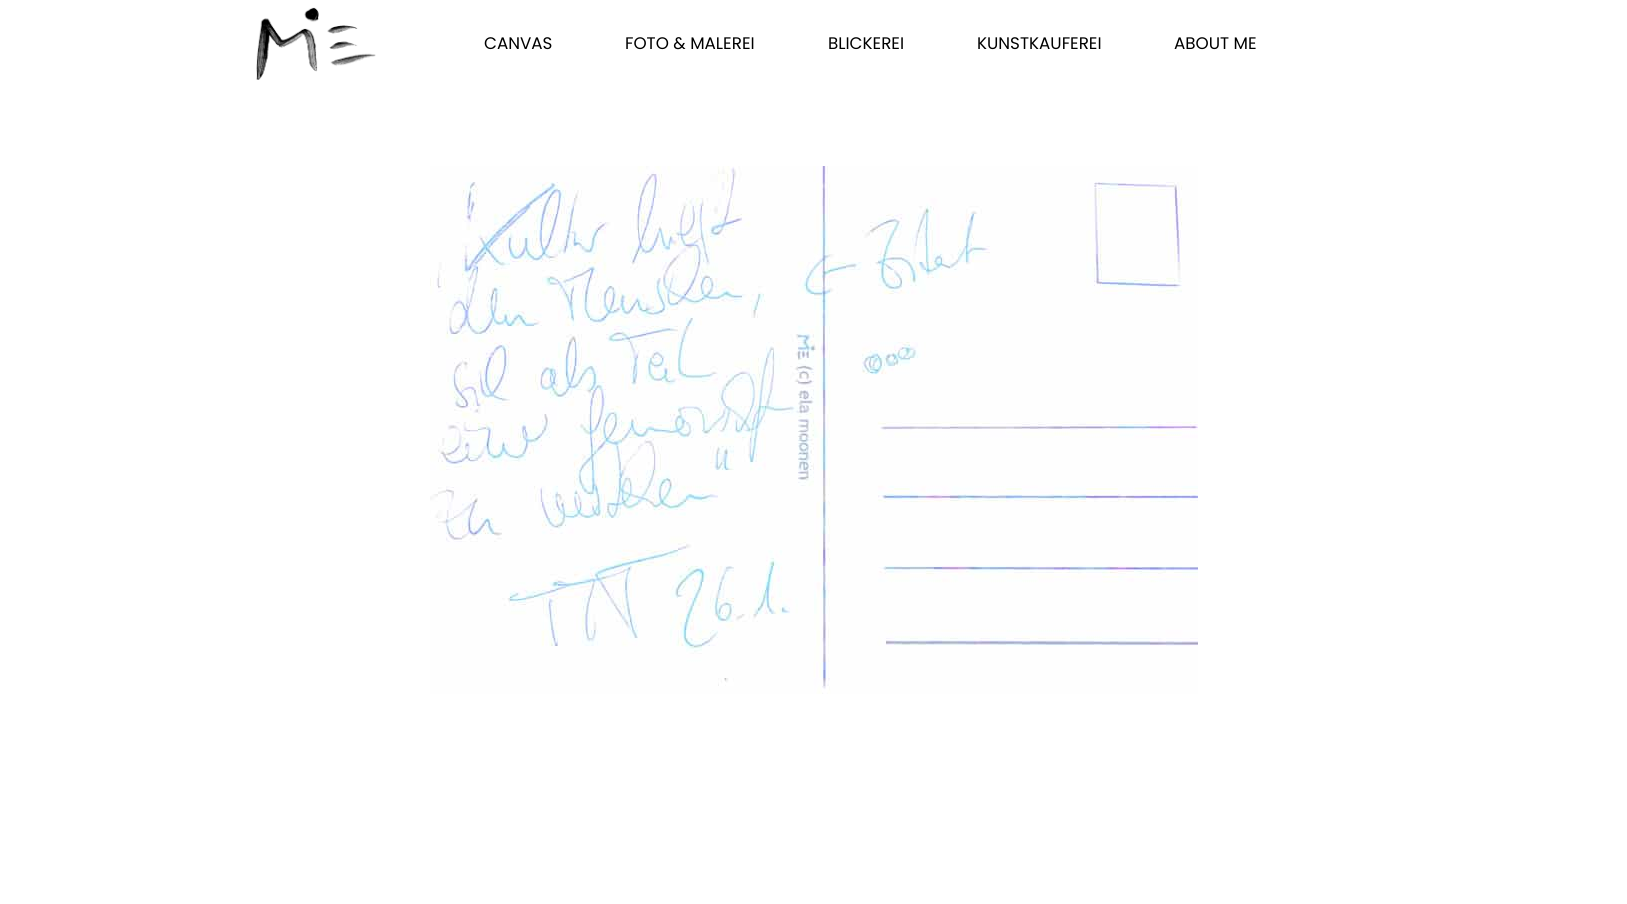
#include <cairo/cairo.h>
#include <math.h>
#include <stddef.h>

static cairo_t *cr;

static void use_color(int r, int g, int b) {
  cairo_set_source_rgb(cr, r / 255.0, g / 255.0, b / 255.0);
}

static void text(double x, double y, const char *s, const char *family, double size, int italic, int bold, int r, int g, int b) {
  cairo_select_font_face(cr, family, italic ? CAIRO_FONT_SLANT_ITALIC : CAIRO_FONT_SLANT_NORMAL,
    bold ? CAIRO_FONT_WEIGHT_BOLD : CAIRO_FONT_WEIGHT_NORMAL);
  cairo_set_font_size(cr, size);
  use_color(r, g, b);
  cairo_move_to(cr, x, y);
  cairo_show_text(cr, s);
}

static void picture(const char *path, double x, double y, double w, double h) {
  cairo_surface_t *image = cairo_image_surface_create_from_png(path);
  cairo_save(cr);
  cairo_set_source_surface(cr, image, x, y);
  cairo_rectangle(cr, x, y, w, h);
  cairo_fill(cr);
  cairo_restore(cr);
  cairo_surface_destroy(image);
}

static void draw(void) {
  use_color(255, 255, 255);
  cairo_paint(cr);
  picture("img_01.png", 256, 7, 120, 73);
  picture("img_02.png", 430, 166, 768, 528);
  text(484, 49, "CANVAS", "Poppins", 16.75, 0, 0, 0, 0, 0);
  text(625, 49, "FOTO & MALEREI", "Poppins", 16.75, 0, 0, 0, 0, 0);
  text(828, 49, "BLICKEREI", "Poppins", 16.75, 0, 0, 0, 0, 0);
  text(977, 49, "KUNSTKAUFEREI", "Poppins", 16.75, 0, 0, 0, 0, 0);
  text(1174, 49, "ABOUT ME", "Poppins", 16.75, 0, 0, 0, 0, 0);
}

int main(void) {
  cairo_surface_t *surface = cairo_image_surface_create(CAIRO_FORMAT_RGB24, 1627, 904);
  cr = cairo_create(surface);
  cairo_font_options_t *options = cairo_font_options_create();
  cairo_font_options_set_hint_metrics(options, CAIRO_HINT_METRICS_OFF);
  cairo_font_options_set_hint_style(options, CAIRO_HINT_STYLE_NONE);
  cairo_set_font_options(cr, options);
  cairo_set_miter_limit(cr, 4);
  draw();
  cairo_surface_write_to_png(surface, "out.png");
  cairo_font_options_destroy(options);
  cairo_destroy(cr);
  cairo_surface_destroy(surface);
  return 0;
}
